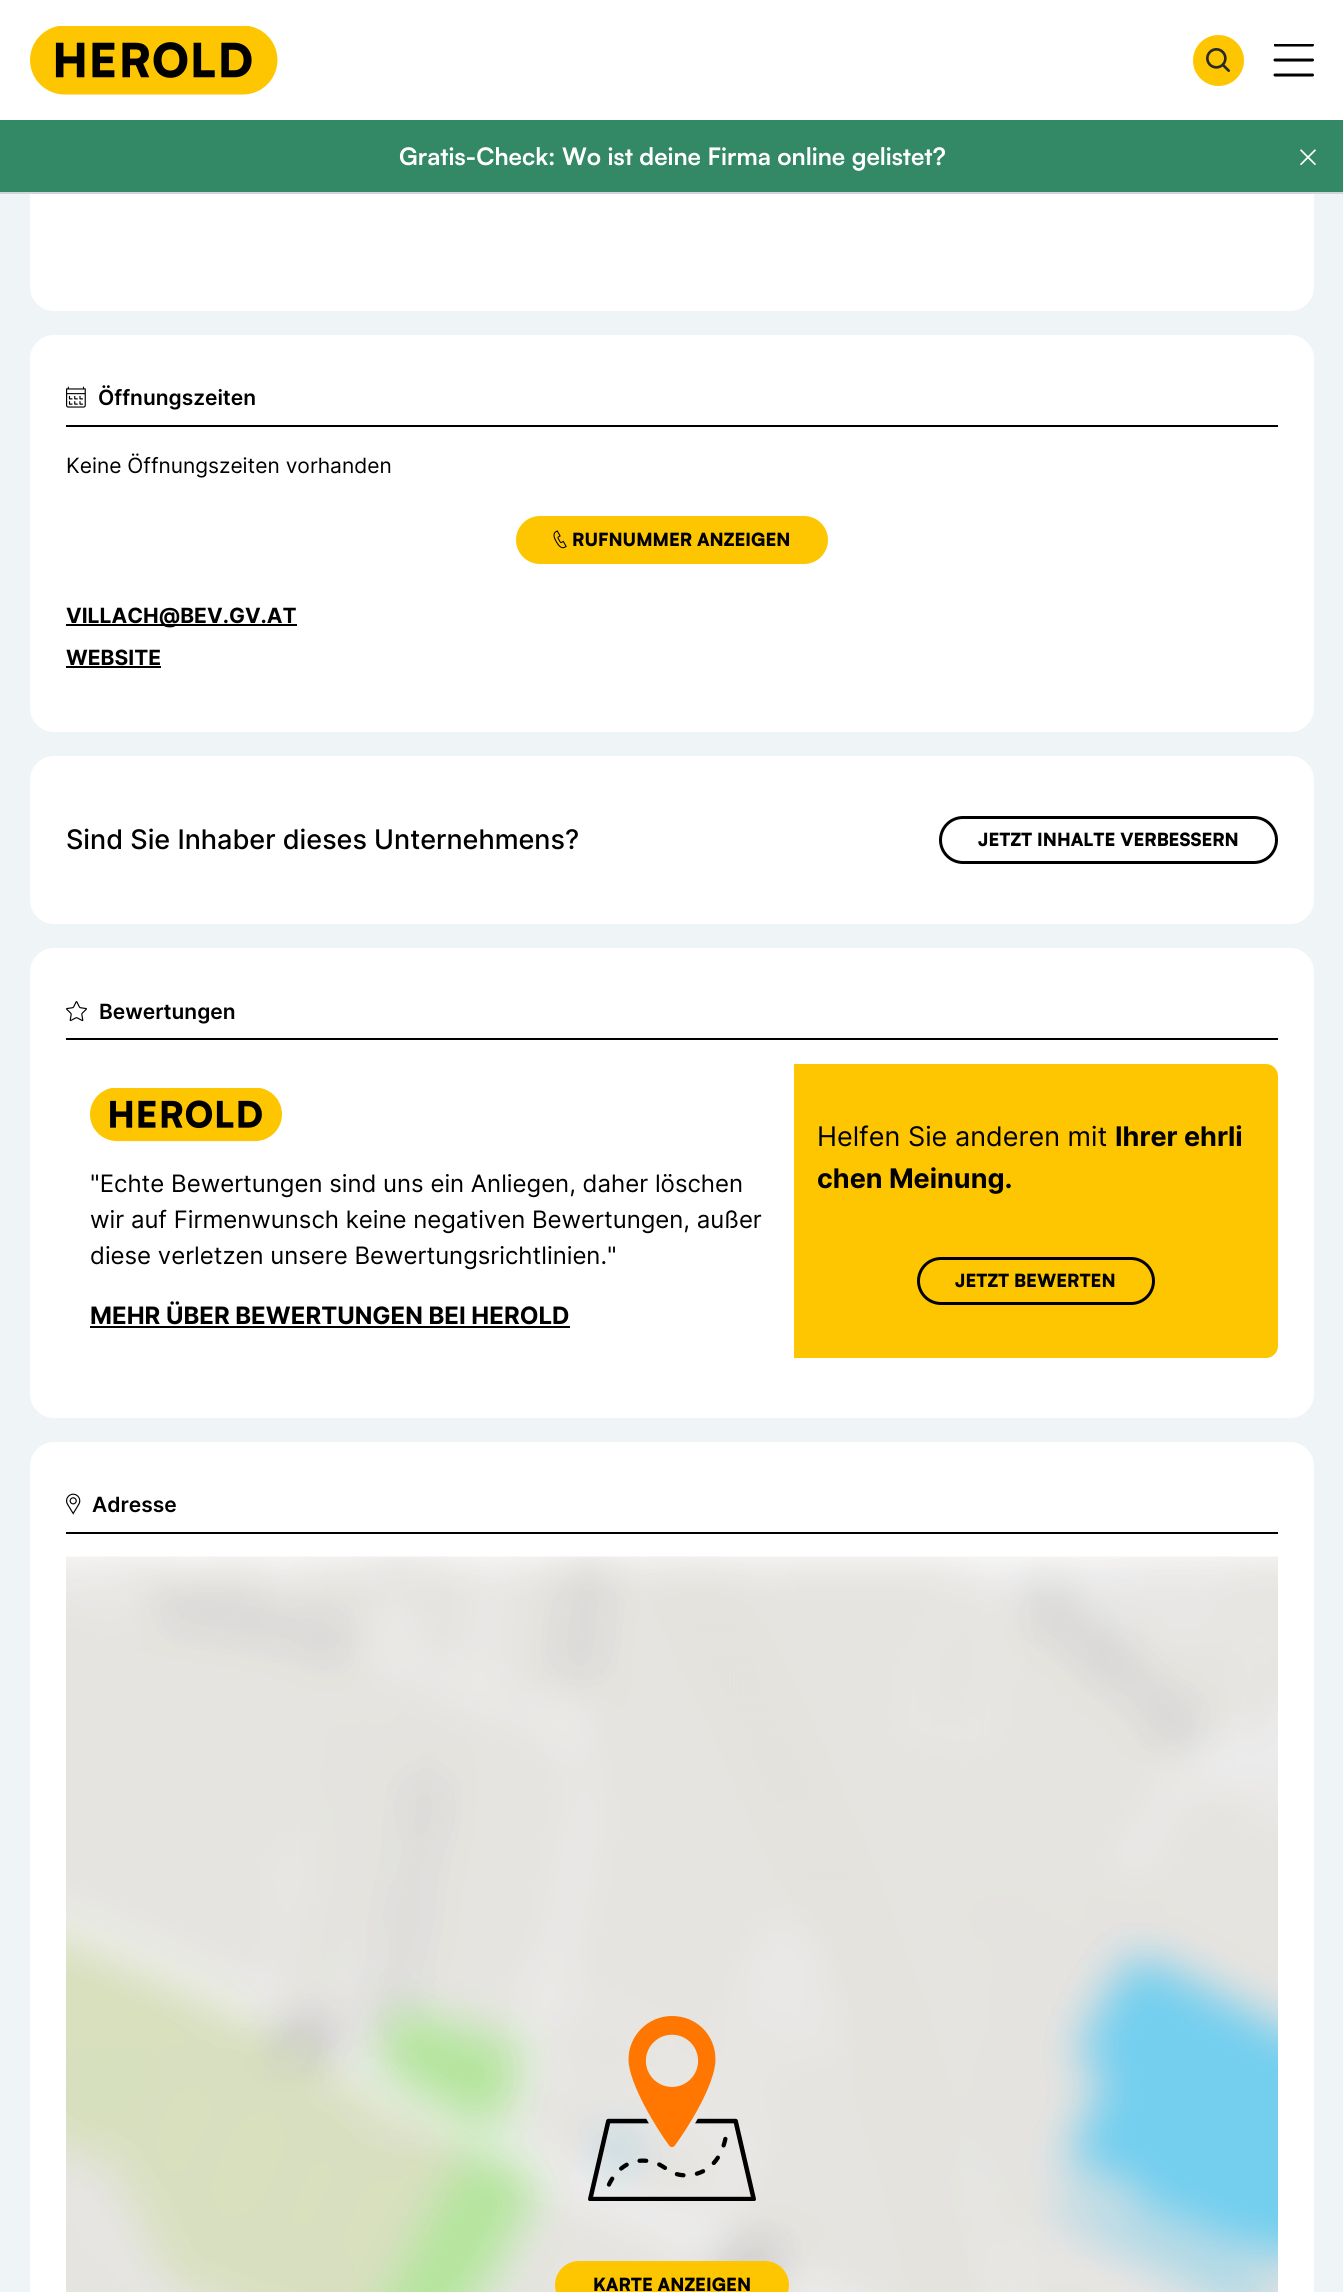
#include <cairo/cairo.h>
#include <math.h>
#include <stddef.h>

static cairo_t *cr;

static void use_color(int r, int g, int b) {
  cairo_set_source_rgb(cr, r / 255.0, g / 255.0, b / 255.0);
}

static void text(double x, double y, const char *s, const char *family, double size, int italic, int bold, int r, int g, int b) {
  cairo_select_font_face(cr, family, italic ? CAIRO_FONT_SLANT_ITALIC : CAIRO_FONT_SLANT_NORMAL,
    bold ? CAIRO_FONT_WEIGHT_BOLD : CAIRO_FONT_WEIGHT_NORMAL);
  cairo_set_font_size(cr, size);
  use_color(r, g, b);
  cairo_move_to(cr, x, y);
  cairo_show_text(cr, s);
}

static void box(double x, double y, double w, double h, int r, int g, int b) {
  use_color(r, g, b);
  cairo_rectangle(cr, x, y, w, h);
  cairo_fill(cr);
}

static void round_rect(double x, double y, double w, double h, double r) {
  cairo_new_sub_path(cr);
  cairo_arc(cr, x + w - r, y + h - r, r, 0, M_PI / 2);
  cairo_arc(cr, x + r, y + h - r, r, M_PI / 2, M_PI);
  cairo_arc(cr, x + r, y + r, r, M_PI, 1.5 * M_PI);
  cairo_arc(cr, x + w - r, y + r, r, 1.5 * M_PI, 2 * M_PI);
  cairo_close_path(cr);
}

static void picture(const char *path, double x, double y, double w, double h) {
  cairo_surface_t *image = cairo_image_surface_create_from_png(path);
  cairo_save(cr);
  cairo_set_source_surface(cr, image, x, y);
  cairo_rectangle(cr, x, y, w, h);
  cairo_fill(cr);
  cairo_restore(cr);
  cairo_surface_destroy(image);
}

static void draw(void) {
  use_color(239, 244, 247);
  cairo_paint(cr);
  use_color(255, 255, 255);
  round_rect(30, -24, 1284, 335, 24);
  cairo_fill(cr);
  box(0, 192, 1343, 2, 209, 213, 219);
  box(0, 0, 1343, 120, 255, 255, 255);
  picture("img_01.png", 30, 26, 248, 69);
  use_color(254, 198, 0);
  cairo_arc(cr, 1218.5, 60.5, 25.5, 0, 2 * M_PI);
  cairo_fill(cr);
  picture("img_02.png", 1206, 48, 24, 24);
  cairo_save(cr);
  cairo_rectangle(cr, 1274, 44, 40, 33);
  cairo_clip(cr);
  cairo_new_path(cr);
  cairo_move_to(cr, 1275, 45);
  cairo_line_to(cr, 1312.5, 45);
  use_color(0, 0, 0);
  cairo_set_line_width(cr, 3);
  cairo_set_line_cap(cr, CAIRO_LINE_CAP_ROUND);
  cairo_stroke(cr);
  cairo_restore(cr);
  cairo_new_path(cr);
  cairo_move_to(cr, 1275, 60);
  cairo_line_to(cr, 1312.5, 60);
  cairo_move_to(cr, 1275, 75);
  cairo_line_to(cr, 1312.5, 75);
  use_color(0, 0, 0);
  cairo_set_line_width(cr, 3);
  cairo_set_line_cap(cr, CAIRO_LINE_CAP_ROUND);
  cairo_stroke(cr);
  box(0, 120, 1343, 72, 51, 136, 102);
  picture("img_03.png", 1300, 149, 16, 16);
  use_color(255, 255, 255);
  round_rect(30, 335, 1284, 397, 24);
  cairo_fill(cr);
  box(66, 425, 1212, 2, 0, 0, 0);
  picture("img_04.png", 66, 386, 20, 22);
  use_color(254, 198, 0);
  round_rect(517, 517, 310, 46, 23);
  cairo_fill_preserve(cr);
  cairo_set_line_width(cr, 2);
  cairo_set_line_cap(cr, CAIRO_LINE_CAP_BUTT);
  cairo_stroke(cr);
  picture("img_05.png", 553, 530, 14, 19);
  box(66, 624, 231, 2, 0, 0, 0);
  box(66, 666, 95, 2, 0, 0, 0);
  use_color(255, 255, 255);
  round_rect(30, 756, 1284, 168, 24);
  cairo_fill(cr);
  round_rect(940.5, 817.5, 336, 45, 22.5);
  use_color(0, 0, 0);
  cairo_set_line_width(cr, 3);
  cairo_stroke(cr);
  use_color(255, 255, 255);
  round_rect(30, 948, 1284, 470, 24);
  cairo_fill(cr);
  box(66, 1038, 1212, 2, 0, 0, 0);
  picture("img_06.png", 66, 1001, 21, 21);
  picture("img_07.png", 90, 1088, 192, 54);
  box(90, 1326, 480, 2, 0, 0, 0);
  use_color(254, 198, 1);
  cairo_new_path(cr);
  cairo_move_to(cr, 794, 1064);
  cairo_line_to(cr, 1266, 1064);
  cairo_curve_to(cr, 1272.5, 1064, 1278, 1069.5, 1278, 1076);
  cairo_line_to(cr, 1278, 1346);
  cairo_curve_to(cr, 1278, 1352.5, 1272.5, 1358, 1266, 1358);
  cairo_line_to(cr, 794, 1358);
  cairo_close_path(cr);
  cairo_fill(cr);
  round_rect(918.5, 1258.5, 235, 45, 22.5);
  use_color(0, 0, 0);
  cairo_stroke(cr);
  use_color(255, 255, 255);
  round_rect(30, 1442, 1284, 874, 24);
  cairo_fill(cr);
  box(66, 1532, 1212, 2, 0, 0, 0);
  picture("img_08.png", 66, 1493, 15, 22);
  picture("img_09.png", 66, 1556, 1212, 736);
  picture("img_10.png", 588, 2016, 168, 185);
  use_color(254, 198, 0);
  round_rect(556, 2262, 232, 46, 23);
  cairo_fill_preserve(cr);
  cairo_set_line_width(cr, 2);
  cairo_stroke(cr);
  text(399, 165, "Gratis-Check: Wo ist deine Firma online gelistet?", "Satoshi", 24, 0, 1, 255, 255, 255);
  text(98, 405, "Öffnungszeiten", "Inter SemiBold", 21, 0, 0, 0, 0, 0);
  text(66, 473, "Keine Öffnungszeiten vorhanden", "Inter", 21, 0, 0, 0, 0, 0);
  text(572, 546, "RUFNUMMER ANZEIGEN", "Satoshi Black", 18, 0, 0, 0, 0, 0);
  text(66, 623, "VILLACH@BEV.GV.AT", "Inter", 21, 0, 1, 0, 0, 0);
  text(66, 665, "WEBSITE", "Inter", 21, 0, 1, 0, 0, 0);
  text(66, 849, "Sind Sie Inhaber dieses Unternehmens?", "Inter Medium", 27, 0, 0, 0, 0, 0);
  text(978, 846, "JETZT INHALTE VERBESSERN", "Satoshi Black", 18, 0, 0, 0, 0, 0);
  text(99, 1019, "Bewertungen", "Inter SemiBold", 21, 0, 0, 0, 0, 0);
  text(90, 1192, "\"Echte Bewertungen sind uns ein Anliegen, daher löschen", "Inter", 24, 0, 0, 0, 0, 0);
  text(90, 1228, "wir auf Firmenwunsch keine negativen Bewertungen, außer", "Inter", 24, 0, 0, 0, 0, 0);
  text(90, 1264, "diese verletzen unsere Bewertungsrichtlinien.\"", "Inter", 24, 0, 0, 0, 0, 0);
  text(90, 1324, "MEHR ÜBER BEWERTUNGEN BEI HEROLD", "Inter", 24, 0, 1, 0, 0, 0);
  text(817, 1146, "Helfen Sie anderen mit", "Inter", 27, 0, 0, 0, 0, 0);
  text(1115, 1146, "Ihrer ehrli", "Inter", 27, 0, 1, 0, 0, 0);
  text(817, 1188, "chen Meinung.", "Inter", 27, 0, 1, 0, 0, 0);
  text(955, 1287, "JETZT BEWERTEN", "Satoshi Black", 18, 0, 0, 0, 0, 0);
  text(92, 1512, "Adresse", "Inter SemiBold", 21, 0, 0, 0, 0, 0);
  text(593, 2291, "KARTE ANZEIGEN", "Satoshi Black", 18, 0, 0, 0, 0, 0);
}

int main(void) {
  cairo_surface_t *surface = cairo_image_surface_create(CAIRO_FORMAT_RGB24, 1343, 2292);
  cr = cairo_create(surface);
  cairo_font_options_t *options = cairo_font_options_create();
  cairo_font_options_set_hint_metrics(options, CAIRO_HINT_METRICS_OFF);
  cairo_font_options_set_hint_style(options, CAIRO_HINT_STYLE_NONE);
  cairo_set_font_options(cr, options);
  cairo_set_miter_limit(cr, 4);
  draw();
  cairo_surface_write_to_png(surface, "out.png");
  cairo_font_options_destroy(options);
  cairo_destroy(cr);
  cairo_surface_destroy(surface);
  return 0;
}
